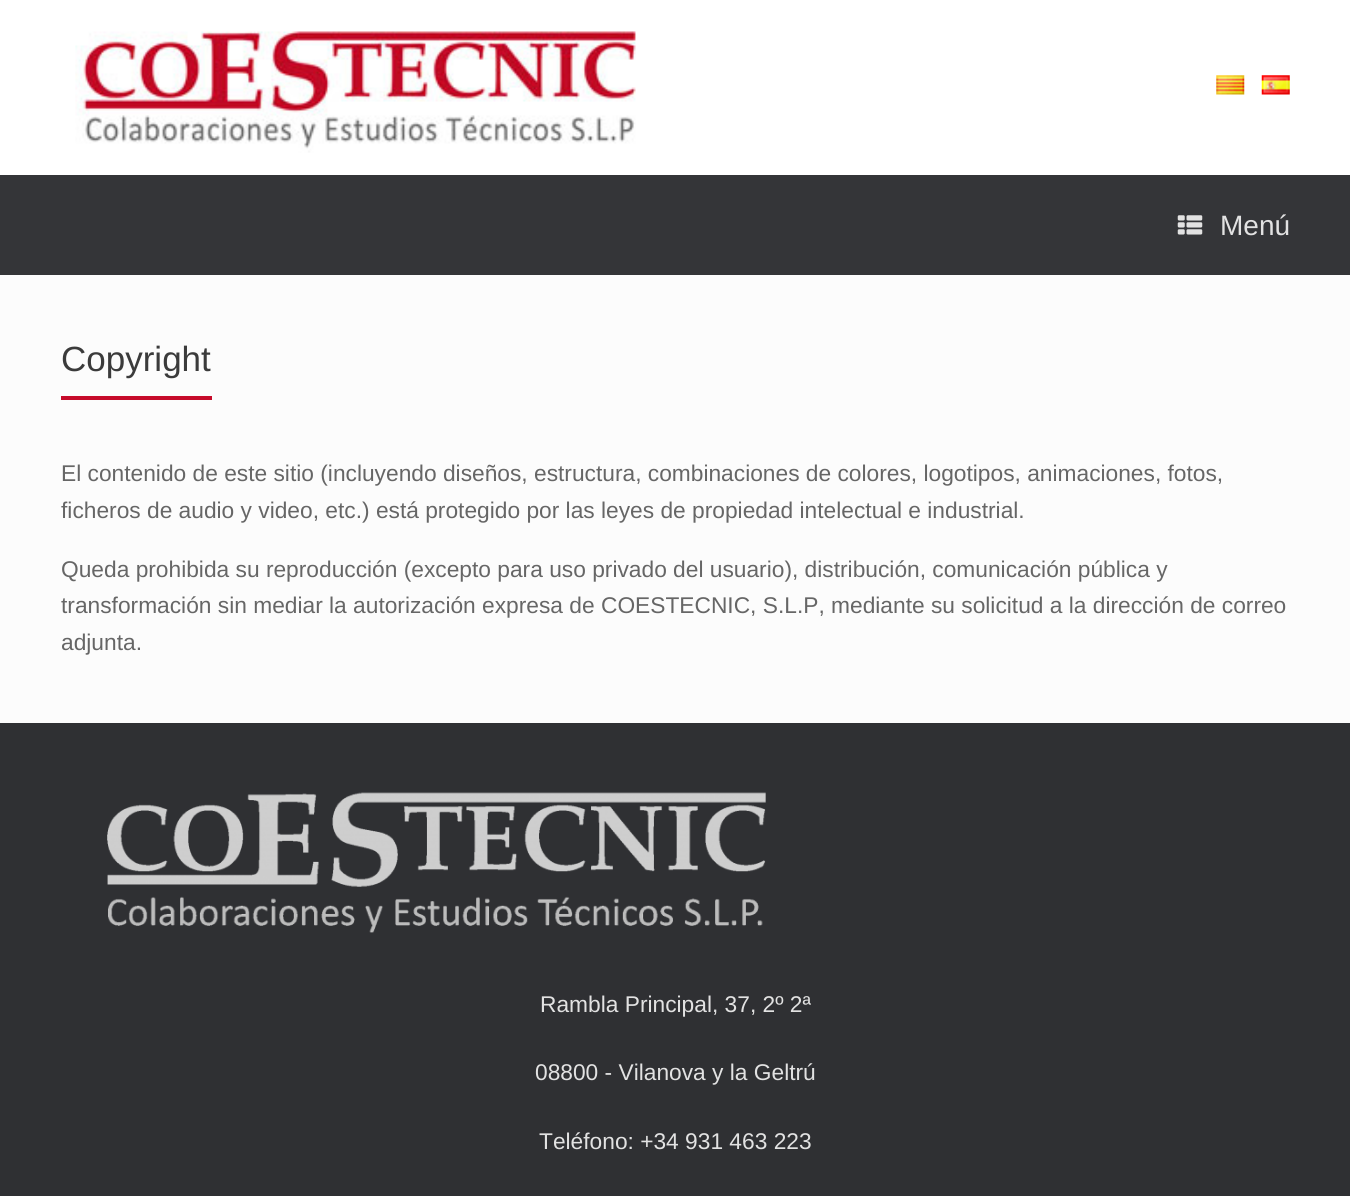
#include <cairo/cairo.h>
#include <math.h>
#include <stddef.h>

static cairo_t *cr;

static void use_color(int r, int g, int b) {
  cairo_set_source_rgb(cr, r / 255.0, g / 255.0, b / 255.0);
}

static void text(double x, double y, const char *s, const char *family, double size, int italic, int bold, int r, int g, int b) {
  cairo_select_font_face(cr, family, italic ? CAIRO_FONT_SLANT_ITALIC : CAIRO_FONT_SLANT_NORMAL,
    bold ? CAIRO_FONT_WEIGHT_BOLD : CAIRO_FONT_WEIGHT_NORMAL);
  cairo_set_font_size(cr, size);
  use_color(r, g, b);
  cairo_move_to(cr, x, y);
  cairo_show_text(cr, s);
}

static void box(double x, double y, double w, double h, int r, int g, int b) {
  use_color(r, g, b);
  cairo_rectangle(cr, x, y, w, h);
  cairo_fill(cr);
}

static void picture(const char *path, double x, double y, double w, double h) {
  cairo_surface_t *image = cairo_image_surface_create_from_png(path);
  cairo_save(cr);
  cairo_set_source_surface(cr, image, x, y);
  cairo_rectangle(cr, x, y, w, h);
  cairo_fill(cr);
  cairo_restore(cr);
  cairo_surface_destroy(image);
}

static void draw(void) {
  use_color(47, 48, 51);
  cairo_paint(cr);
  box(0, 0, 1350, 175, 255, 255, 255);
  picture("img_01.png", 75, 31, 561, 122);
  picture("img_02.png", 1216, 75, 29, 20);
  picture("img_03.png", 1261, 75, 29, 20);
  box(0, 175, 1350, 100, 52, 53, 56);
  picture("img_04.png", 1177, 215, 26, 20);
  box(0, 275, 1350, 448, 252, 252, 252);
  box(61, 396, 151, 4, 198, 11, 42);
  picture("img_05.png", 107, 792, 659, 141);
  text(1220, 235, "Menú", "Liberation Sans", 28, 0, 0, 226, 226, 226);
  text(61, 371, "Copyright", "Liberation Sans", 35, 0, 0, 59, 59, 59);
  text(61, 481, "El contenido de este sitio (incluyendo diseños, estructura, combinaciones de colores, logotipos, animaciones, fotos,", "Liberation Sans", 22.75, 0, 0, 102, 102, 102);
  text(61, 518, "ficheros de audio y video, etc.) está protegido por las leyes de propiedad intelectual e industrial.", "Liberation Sans", 22.75, 0, 0, 102, 102, 102);
  text(61, 577, "Queda prohibida su reproducción (excepto para uso privado del usuario), distribución, comunicación pública y", "Liberation Sans", 22.75, 0, 0, 102, 102, 102);
  text(61, 613, "transformación sin mediar la autorización expresa de COESTECNIC, S.L.P, mediante su solicitud a la dirección de correo", "Liberation Sans", 22.75, 0, 0, 102, 102, 102);
  text(61, 650, "adjunta.", "Liberation Sans", 22.75, 0, 0, 102, 102, 102);
  text(540, 1012, "Rambla Principal, 37, 2º 2ª", "Liberation Sans", 22.75, 0, 0, 226, 226, 226);
  text(535, 1080, "08800 - Vilanova y la Geltrú", "Liberation Sans", 22.75, 0, 0, 226, 226, 226);
  text(539, 1149, "Teléfono: +34 931 463 223", "Liberation Sans", 22.75, 0, 0, 226, 226, 226);
}

int main(void) {
  cairo_surface_t *surface = cairo_image_surface_create(CAIRO_FORMAT_RGB24, 1350, 1196);
  cr = cairo_create(surface);
  cairo_font_options_t *options = cairo_font_options_create();
  cairo_font_options_set_hint_metrics(options, CAIRO_HINT_METRICS_OFF);
  cairo_font_options_set_hint_style(options, CAIRO_HINT_STYLE_NONE);
  cairo_set_font_options(cr, options);
  cairo_set_miter_limit(cr, 4);
  draw();
  cairo_surface_write_to_png(surface, "out.png");
  cairo_font_options_destroy(options);
  cairo_destroy(cr);
  cairo_surface_destroy(surface);
  return 0;
}
